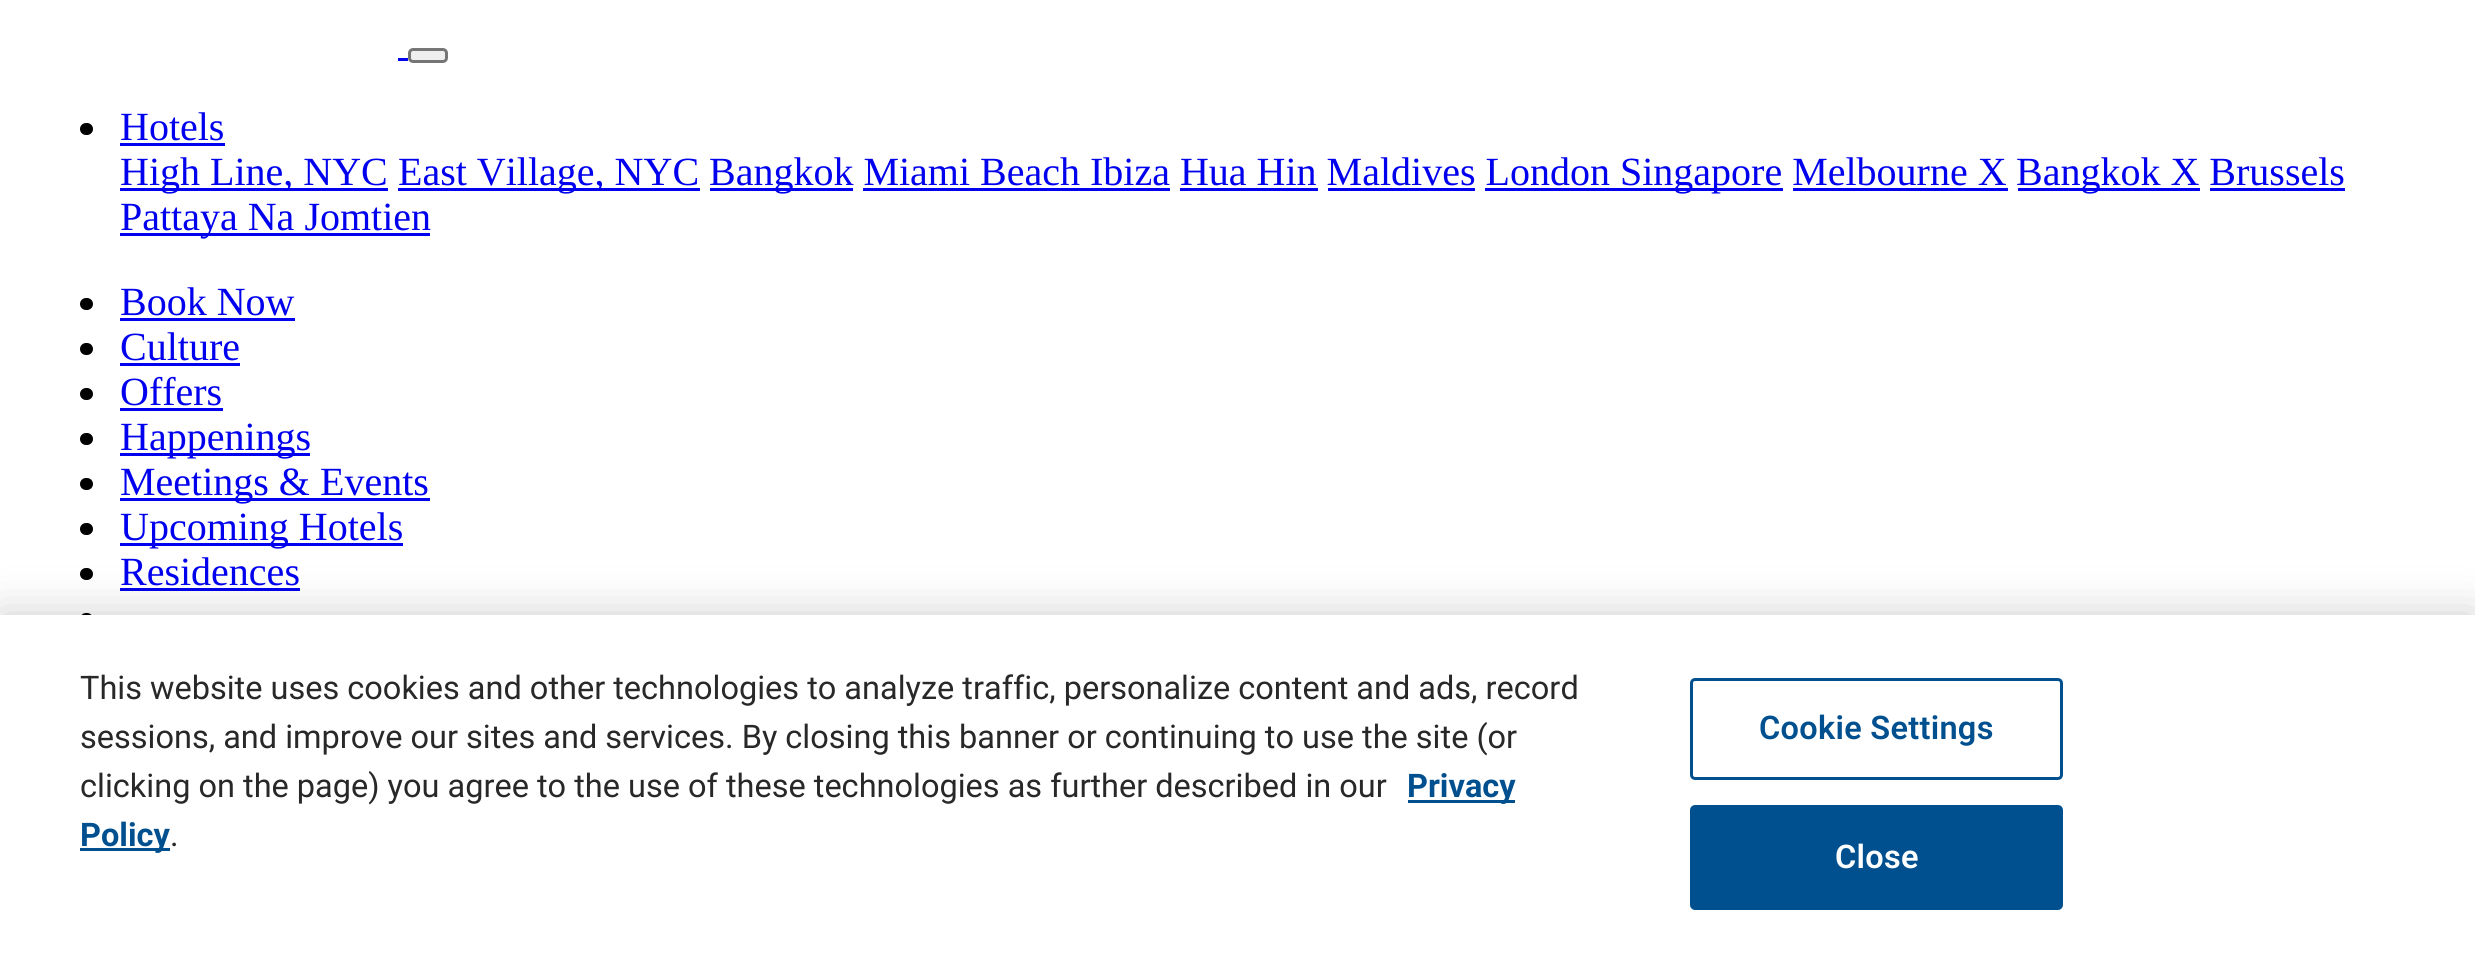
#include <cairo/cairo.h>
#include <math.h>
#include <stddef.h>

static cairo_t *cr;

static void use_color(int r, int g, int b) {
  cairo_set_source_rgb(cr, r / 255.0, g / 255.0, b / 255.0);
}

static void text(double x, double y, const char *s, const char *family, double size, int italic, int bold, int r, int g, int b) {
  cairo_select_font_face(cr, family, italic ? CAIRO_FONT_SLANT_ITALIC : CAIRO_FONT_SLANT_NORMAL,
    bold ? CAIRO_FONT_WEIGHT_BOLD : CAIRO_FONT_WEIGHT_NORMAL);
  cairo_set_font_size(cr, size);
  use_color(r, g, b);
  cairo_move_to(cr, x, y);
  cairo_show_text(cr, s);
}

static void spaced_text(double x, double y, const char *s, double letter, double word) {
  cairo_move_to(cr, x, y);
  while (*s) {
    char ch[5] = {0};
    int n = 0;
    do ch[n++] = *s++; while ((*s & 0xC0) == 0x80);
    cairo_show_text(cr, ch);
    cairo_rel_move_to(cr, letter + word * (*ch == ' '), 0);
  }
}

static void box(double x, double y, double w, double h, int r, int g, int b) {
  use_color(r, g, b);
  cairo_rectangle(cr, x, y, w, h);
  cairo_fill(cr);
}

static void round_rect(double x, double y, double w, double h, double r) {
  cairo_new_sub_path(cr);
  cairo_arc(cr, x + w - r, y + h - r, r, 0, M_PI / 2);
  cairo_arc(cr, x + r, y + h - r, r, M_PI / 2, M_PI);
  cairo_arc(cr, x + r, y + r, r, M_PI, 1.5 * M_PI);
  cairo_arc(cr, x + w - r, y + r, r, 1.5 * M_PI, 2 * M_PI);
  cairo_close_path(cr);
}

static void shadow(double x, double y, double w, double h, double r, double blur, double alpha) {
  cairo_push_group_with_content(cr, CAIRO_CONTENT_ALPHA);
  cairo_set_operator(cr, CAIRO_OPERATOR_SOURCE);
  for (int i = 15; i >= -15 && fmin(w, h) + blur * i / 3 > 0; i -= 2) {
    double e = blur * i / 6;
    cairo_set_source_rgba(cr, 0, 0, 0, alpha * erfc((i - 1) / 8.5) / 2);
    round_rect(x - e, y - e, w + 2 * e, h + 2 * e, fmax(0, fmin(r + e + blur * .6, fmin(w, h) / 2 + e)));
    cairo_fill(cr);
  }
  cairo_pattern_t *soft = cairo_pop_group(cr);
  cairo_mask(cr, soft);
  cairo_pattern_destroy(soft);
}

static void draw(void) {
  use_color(255, 255, 255);
  cairo_paint(cr);
  box(398, 58, 10, 3, 0, 0, 238);
  use_color(239, 239, 239);
  round_rect(409.5, 49.5, 37, 12, 3.5);
  cairo_fill_preserve(cr);
  use_color(118, 118, 118);
  cairo_set_line_width(cr, 3);
  cairo_stroke(cr);
  use_color(0, 0, 0);
  round_rect(80, 123, 13, 12, 6);
  cairo_fill(cr);
  box(120, 143, 105, 3, 0, 0, 238);
  box(120, 188, 268, 3, 0, 0, 238);
  box(398, 188, 302, 3, 0, 0, 238);
  box(710, 188, 143, 3, 0, 0, 238);
  box(2018, 188, 182, 3, 0, 0, 238);
  box(863, 188, 307, 3, 0, 0, 238);
  box(1180, 188, 138, 3, 0, 0, 238);
  box(1328, 188, 147, 3, 0, 0, 238);
  box(1485, 188, 298, 3, 0, 0, 238);
  box(1793, 188, 215, 3, 0, 0, 238);
  box(2210, 188, 135, 3, 0, 0, 238);
  box(120, 233, 310, 3, 0, 0, 238);
  use_color(0, 0, 0);
  round_rect(80, 298, 13, 12, 6);
  cairo_fill(cr);
  box(120, 318, 175, 3, 0, 0, 238);
  use_color(0, 0, 0);
  round_rect(80, 343, 13, 12, 6);
  cairo_fill(cr);
  box(120, 363, 120, 3, 0, 0, 238);
  use_color(0, 0, 0);
  round_rect(80, 388, 13, 12, 6);
  cairo_fill(cr);
  box(120, 408, 103, 3, 0, 0, 238);
  use_color(0, 0, 0);
  round_rect(80, 433, 13, 12, 6);
  cairo_fill(cr);
  box(120, 453, 190, 3, 0, 0, 238);
  use_color(0, 0, 0);
  round_rect(80, 478, 13, 12, 6);
  cairo_fill(cr);
  box(120, 498, 310, 3, 0, 0, 238);
  use_color(0, 0, 0);
  round_rect(80, 523, 13, 12, 6);
  cairo_fill(cr);
  box(120, 543, 283, 3, 0, 0, 238);
  use_color(0, 0, 0);
  round_rect(80, 568, 13, 12, 6);
  cairo_fill(cr);
  box(120, 588, 180, 3, 0, 0, 238);
  use_color(0, 0, 0);
  round_rect(80, 613, 13, 12, 6);
  cairo_fill(cr);
  use_color(0, 0, 0);
  shadow(0, 615, 2475, 345, 0, 22.5, 0.2);
  box(0, 615, 2475, 345, 255, 255, 255);
  box(1408, 800, 107, 3, 0, 80, 144);
  box(80, 848, 90, 3, 0, 80, 144);
  round_rect(1691.5, 679.5, 370, 99, 3.5);
  cairo_stroke(cr);
  round_rect(1691.5, 806.5, 370, 102, 3.5);
  cairo_fill_preserve(cr);
  cairo_stroke(cr);
  text(120, 140, "Hotels", "Liberation Serif", 40, 0, 0, 0, 0, 238);
  text(120, 185, "High Line, NYC", "Liberation Serif", 40, 0, 0, 0, 0, 238);
  text(398, 185, "East Village, NYC", "Liberation Serif", 40, 0, 0, 0, 0, 238);
  text(709, 185, "Bangkok Miami Beach Ibiza Hua Hin Maldives London", "Liberation Serif", 40, 0, 0, 0, 0, 238);
  text(1620, 185, "Singapore Melbourne X", "Liberation Serif", 40, 0, 0, 0, 0, 238);
  text(2016, 185, "Bangkok X Brussels", "Liberation Serif", 40, 0, 0, 0, 0, 238);
  text(120, 230, "Pattaya Na Jomtien", "Liberation Serif", 40, 0, 0, 0, 0, 238);
  text(120, 315, "Book Now", "Liberation Serif", 40, 0, 0, 0, 0, 238);
  text(120, 360, "Culture", "Liberation Serif", 40, 0, 0, 0, 0, 238);
  text(120, 405, "Offers", "Liberation Serif", 40, 0, 0, 0, 0, 238);
  text(120, 450, "Happenings", "Liberation Serif", 40, 0, 0, 0, 0, 238);
  text(120, 495, "Meetings & Events", "Liberation Serif", 40, 0, 0, 0, 0, 238);
  text(120, 540, "Upcoming Hotels", "Liberation Serif", 40, 0, 0, 0, 0, 238);
  text(120, 585, "Residences", "Liberation Serif", 40, 0, 0, 0, 0, 238);
  text(80, 699, "This website uses cookies and other technologies to analyze traffic, personalize content and ads, record", "Roboto", 32.5, 0, 0, 40, 40, 40);
  text(80, 748, "sessions, and improve our sites and services. By closing this banner or continuing to use the site (or", "Roboto", 32.5, 0, 0, 40, 40, 40);
  text(80, 797, "clicking on the page) you agree to the use of these technologies as further described in our", "Roboto", 32.5, 0, 0, 40, 40, 40);
  text(1407, 797, "Privacy", "Roboto", 32.5, 0, 1, 0, 80, 144);
  text(80, 846, "Policy", "Roboto", 32.5, 0, 1, 0, 80, 144);
  text(170, 846, ".", "Roboto", 32.5, 0, 0, 40, 40, 40);
  cairo_select_font_face(cr, "Roboto SemiBold", CAIRO_FONT_SLANT_NORMAL, CAIRO_FONT_WEIGHT_NORMAL);
  use_color(0, 80, 144);
  spaced_text(1759, 739, "Cookie Settings", 0.3, 0);
  use_color(255, 255, 255);
  spaced_text(1835, 868, "Close", 0.3, 0);
}

int main(void) {
  cairo_surface_t *surface = cairo_image_surface_create(CAIRO_FORMAT_RGB24, 2475, 960);
  cr = cairo_create(surface);
  cairo_font_options_t *options = cairo_font_options_create();
  cairo_font_options_set_hint_metrics(options, CAIRO_HINT_METRICS_OFF);
  cairo_font_options_set_hint_style(options, CAIRO_HINT_STYLE_NONE);
  cairo_set_font_options(cr, options);
  cairo_set_miter_limit(cr, 4);
  draw();
  cairo_surface_write_to_png(surface, "out.png");
  cairo_font_options_destroy(options);
  cairo_destroy(cr);
  cairo_surface_destroy(surface);
  return 0;
}
